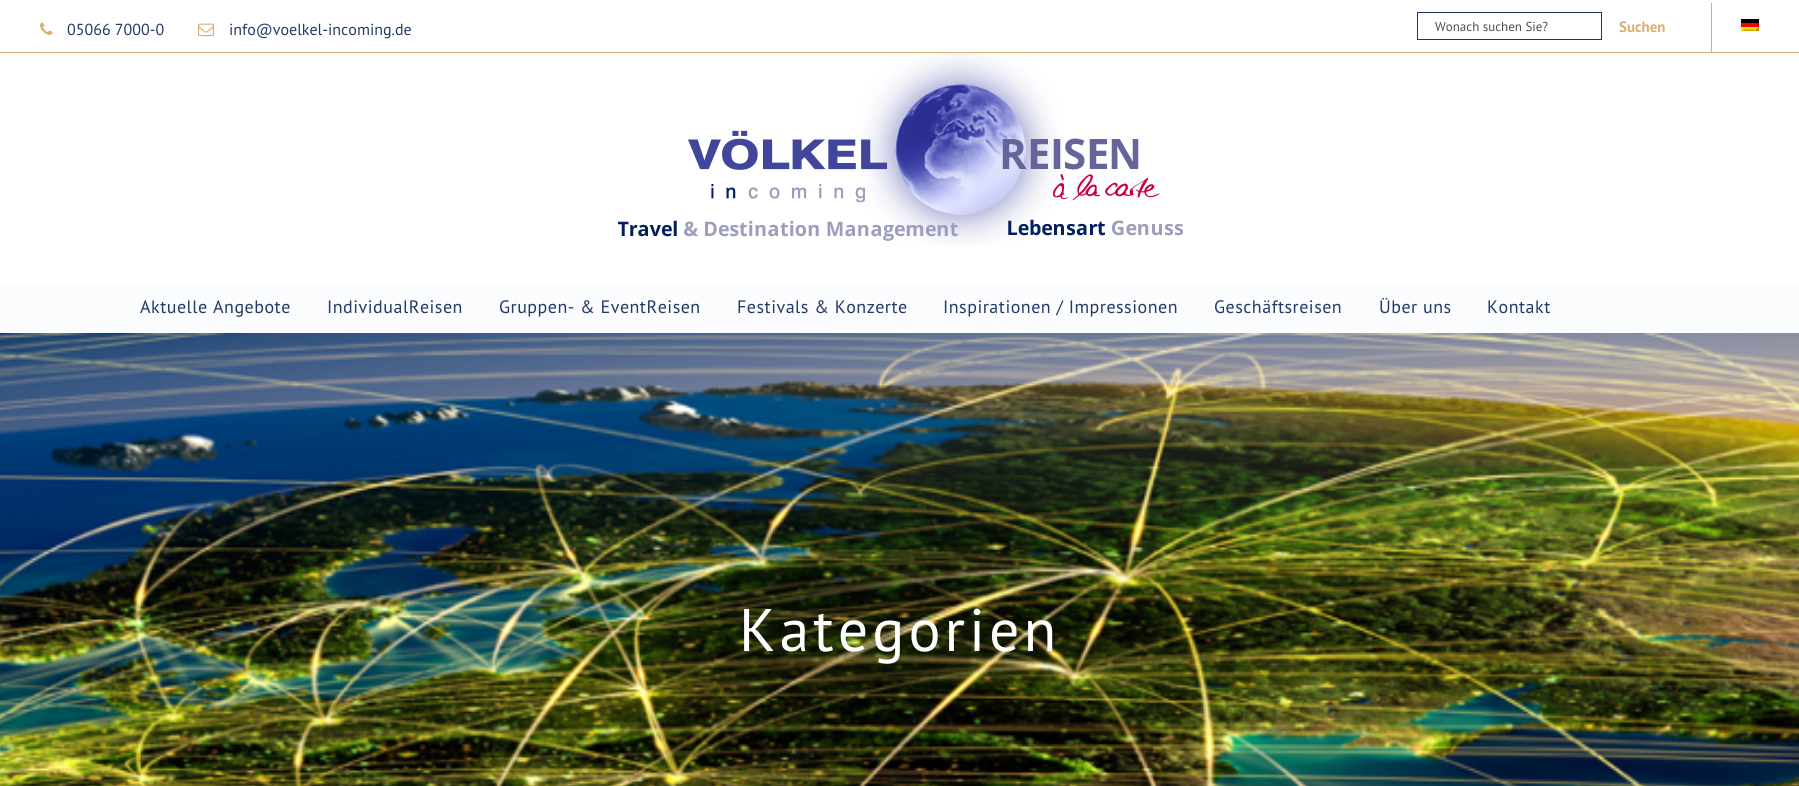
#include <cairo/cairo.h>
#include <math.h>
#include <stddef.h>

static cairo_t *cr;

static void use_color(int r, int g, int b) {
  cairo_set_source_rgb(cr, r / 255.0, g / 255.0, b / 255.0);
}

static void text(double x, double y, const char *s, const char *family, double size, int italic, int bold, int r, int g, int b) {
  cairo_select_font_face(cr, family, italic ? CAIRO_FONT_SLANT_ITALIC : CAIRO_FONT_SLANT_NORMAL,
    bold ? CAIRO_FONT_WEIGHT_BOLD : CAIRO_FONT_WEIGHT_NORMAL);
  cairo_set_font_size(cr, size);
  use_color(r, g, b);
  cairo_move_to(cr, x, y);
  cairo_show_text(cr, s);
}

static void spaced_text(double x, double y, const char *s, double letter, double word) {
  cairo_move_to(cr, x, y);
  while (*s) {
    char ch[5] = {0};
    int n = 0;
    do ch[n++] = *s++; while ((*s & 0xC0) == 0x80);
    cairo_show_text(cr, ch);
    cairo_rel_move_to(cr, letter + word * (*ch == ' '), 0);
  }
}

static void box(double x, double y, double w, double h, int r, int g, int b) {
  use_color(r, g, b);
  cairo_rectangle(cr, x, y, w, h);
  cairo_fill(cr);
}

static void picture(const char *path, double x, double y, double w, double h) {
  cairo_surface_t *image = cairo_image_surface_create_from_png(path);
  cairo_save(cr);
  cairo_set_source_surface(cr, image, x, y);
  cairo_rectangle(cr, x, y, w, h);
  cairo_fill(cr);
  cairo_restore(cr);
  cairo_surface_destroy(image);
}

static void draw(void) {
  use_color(255, 255, 255);
  cairo_paint(cr);
  box(0, 52, 1799, 1, 217, 175, 114);
  picture("img_01.png", 40, 22, 13, 13);
  picture("img_02.png", 198, 23, 16, 14);
  cairo_rectangle(cr, 1417.5, 12.5, 184, 27);
  use_color(33, 50, 109);
  cairo_set_line_width(cr, 1);
  cairo_stroke(cr);
  box(1711, 3, 1, 54, 217, 175, 114);
  picture("img_03.png", 1741, 19, 18, 12);
  box(1711, 53, 1, 4, 255, 255, 255);
  picture("img_04.png", 618, 53, 565, 193);
  box(0, 282, 1799, 51, 251, 252, 254);
  picture("img_05.png", 0, 333, 1799, 453);
  text(67, 35, "05066 7000-0", "PT Sans", 16, 0, 0, 36, 58, 102);
  text(229, 35, "info@voelkel-incoming.de", "PT Sans", 16, 0, 0, 36, 58, 102);
  text(1435, 31, "Wonach suchen Sie?", "PT Sans", 13, 0, 0, 78, 78, 78);
  text(1619, 32, "Suchen", "PT Sans", 15, 0, 1, 217, 175, 114);
  cairo_select_font_face(cr, "PT Sans", CAIRO_FONT_SLANT_NORMAL, CAIRO_FONT_WEIGHT_NORMAL);
  cairo_set_font_size(cr, 18);
  use_color(36, 58, 102);
  spaced_text(140, 313, "Aktuelle Angebote", 0.5, 0);
  spaced_text(327, 313, "IndividualReisen", 0.5, 0);
  spaced_text(499, 313, "Gruppen- & EventReisen", 0.5, 0);
  spaced_text(737, 313, "Festivals & Konzerte", 0.5, 0);
  spaced_text(943, 313, "Inspirationen / Impressionen", 0.5, 0);
  spaced_text(1214, 313, "Geschäftsreisen", 0.5, 0);
  spaced_text(1379, 313, "Über uns", 0.5, 0);
  spaced_text(1487, 313, "Kontakt", 0.5, 0);
  cairo_set_font_size(cr, 60);
  use_color(255, 255, 255);
  spaced_text(739, 651, "Kategorien", 4, 0);
}

int main(void) {
  cairo_surface_t *surface = cairo_image_surface_create(CAIRO_FORMAT_RGB24, 1799, 786);
  cr = cairo_create(surface);
  cairo_font_options_t *options = cairo_font_options_create();
  cairo_font_options_set_hint_metrics(options, CAIRO_HINT_METRICS_OFF);
  cairo_font_options_set_hint_style(options, CAIRO_HINT_STYLE_NONE);
  cairo_set_font_options(cr, options);
  cairo_set_miter_limit(cr, 4);
  draw();
  cairo_surface_write_to_png(surface, "out.png");
  cairo_font_options_destroy(options);
  cairo_destroy(cr);
  cairo_surface_destroy(surface);
  return 0;
}
